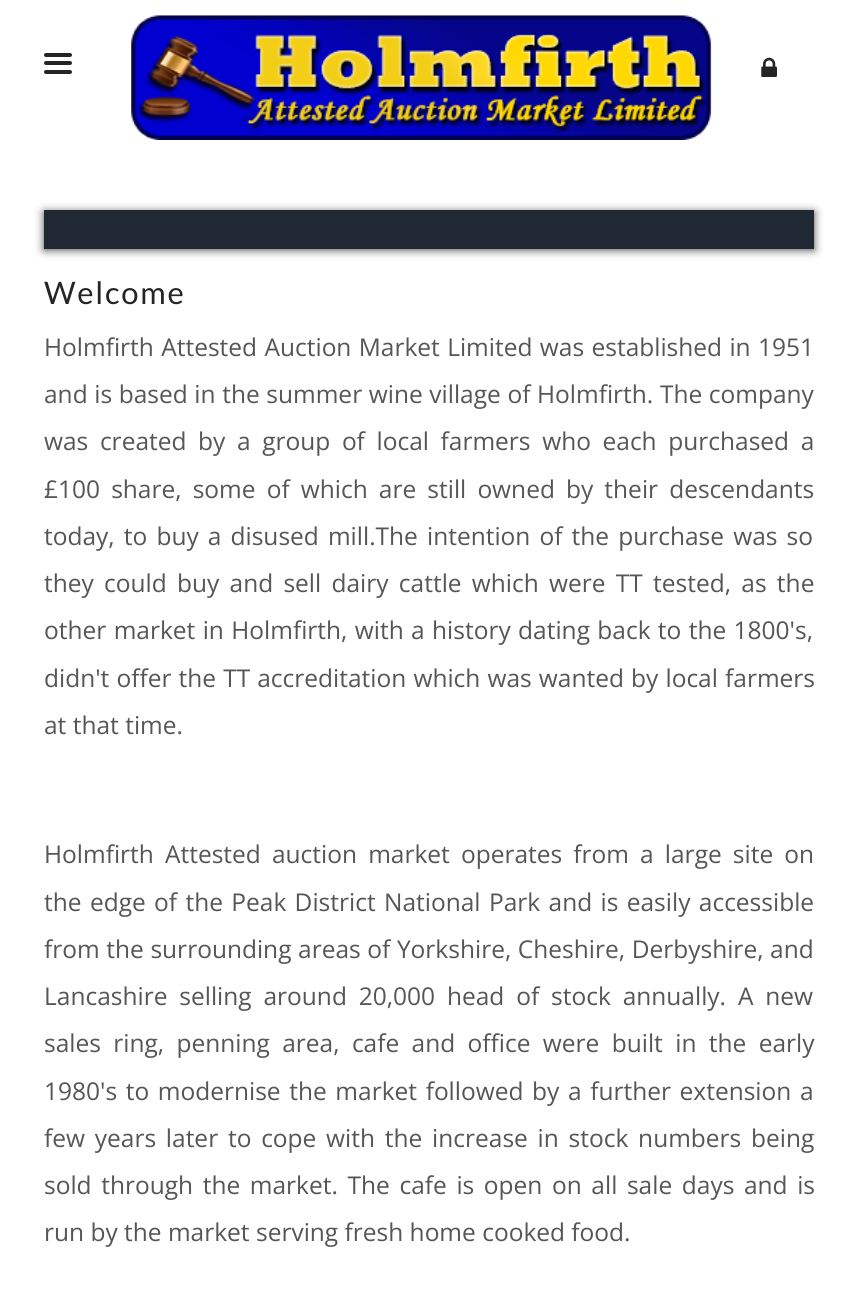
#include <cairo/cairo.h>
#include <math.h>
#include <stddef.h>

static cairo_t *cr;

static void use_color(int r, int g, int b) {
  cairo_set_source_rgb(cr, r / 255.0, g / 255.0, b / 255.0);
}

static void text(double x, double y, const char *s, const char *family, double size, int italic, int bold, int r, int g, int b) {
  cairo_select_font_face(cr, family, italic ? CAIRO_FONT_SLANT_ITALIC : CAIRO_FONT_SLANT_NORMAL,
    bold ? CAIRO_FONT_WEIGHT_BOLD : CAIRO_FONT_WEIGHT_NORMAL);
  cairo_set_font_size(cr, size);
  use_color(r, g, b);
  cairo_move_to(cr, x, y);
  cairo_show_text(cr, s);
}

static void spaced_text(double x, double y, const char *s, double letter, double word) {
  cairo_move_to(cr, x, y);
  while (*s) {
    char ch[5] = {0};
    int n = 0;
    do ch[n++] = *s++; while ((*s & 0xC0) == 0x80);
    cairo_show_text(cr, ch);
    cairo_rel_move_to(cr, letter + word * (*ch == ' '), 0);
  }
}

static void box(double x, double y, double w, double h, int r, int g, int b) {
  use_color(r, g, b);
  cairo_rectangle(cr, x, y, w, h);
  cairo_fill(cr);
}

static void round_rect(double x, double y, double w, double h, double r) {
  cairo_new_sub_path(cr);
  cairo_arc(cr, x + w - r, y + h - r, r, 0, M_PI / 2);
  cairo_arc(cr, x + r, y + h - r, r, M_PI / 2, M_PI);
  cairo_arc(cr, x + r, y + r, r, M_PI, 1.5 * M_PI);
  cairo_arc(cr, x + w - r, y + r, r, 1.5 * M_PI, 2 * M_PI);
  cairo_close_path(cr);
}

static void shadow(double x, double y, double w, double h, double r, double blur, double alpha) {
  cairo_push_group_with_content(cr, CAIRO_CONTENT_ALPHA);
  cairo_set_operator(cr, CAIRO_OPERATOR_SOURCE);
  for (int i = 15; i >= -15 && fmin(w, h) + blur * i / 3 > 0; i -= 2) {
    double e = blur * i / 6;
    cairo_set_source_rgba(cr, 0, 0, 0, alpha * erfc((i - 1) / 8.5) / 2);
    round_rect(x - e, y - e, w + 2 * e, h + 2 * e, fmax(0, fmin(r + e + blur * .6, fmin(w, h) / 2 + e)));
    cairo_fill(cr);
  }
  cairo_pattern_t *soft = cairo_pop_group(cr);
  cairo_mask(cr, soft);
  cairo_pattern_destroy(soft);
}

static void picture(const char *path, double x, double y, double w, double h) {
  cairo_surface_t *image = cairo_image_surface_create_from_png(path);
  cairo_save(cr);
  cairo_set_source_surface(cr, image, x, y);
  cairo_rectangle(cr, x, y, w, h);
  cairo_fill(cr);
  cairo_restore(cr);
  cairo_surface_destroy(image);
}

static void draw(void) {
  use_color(255, 255, 255);
  cairo_paint(cr);
  use_color(37, 37, 37);
  round_rect(44, 61, 28, 4, 2);
  cairo_fill(cr);
  round_rect(44, 53, 28, 4, 2);
  cairo_fill(cr);
  round_rect(44, 70, 28, 4, 2);
  cairo_fill(cr);
  picture("img_01.png", 131, 15, 581, 125);
  picture("img_02.png", 761, 57, 16, 20);
  use_color(74, 74, 74);
  shadow(44, 212, 770, 38, 0, 4.5, 1);
  box(44, 210, 770, 39, 32, 40, 52);
  cairo_select_font_face(cr, "Lato", CAIRO_FONT_SLANT_NORMAL, CAIRO_FONT_WEIGHT_NORMAL);
  cairo_set_font_size(cr, 31);
  use_color(37, 37, 37);
  spaced_text(44, 304, "Welcome", 1.75, 0);
  cairo_select_font_face(cr, "Open Sans", CAIRO_FONT_SLANT_NORMAL, CAIRO_FONT_WEIGHT_NORMAL);
  cairo_set_font_size(cr, 24.5);
  use_color(86, 86, 86);
  spaced_text(44, 356, "Holmfirth Attested Auction Market Limited was established in 1951", 0, 1);
  spaced_text(44, 403, "and is based in the summer wine village of Holmfirth. The company", 0, 0.25);
  spaced_text(44, 450, "was created by a group of local farmers who each purchased a", 0, 5.25);
  spaced_text(44, 498, "£100 share, some of which are still owned by their descendants", 0, 4.75);
  spaced_text(44, 545, "today, to buy a disused mill.The intention of the purchase was so", 0, 2.75);
  spaced_text(44, 592, "they could buy and sell dairy cattle which were TT tested, as the", 0, 3.9);
  spaced_text(44, 639, "other market in Holmfirth, with a history dating back to the 1800's,", 0, 1);
  spaced_text(44, 687, "didn't offer the TT accreditation which was wanted by local farmers", 0, 0.75);
  text(44, 734, "at that time.", "Open Sans", 24.5, 0, 0, 86, 86, 86);
  spaced_text(44, 863, "Holmfirth Attested auction market operates from a large site on", 0, 4.75);
  spaced_text(44, 911, "the edge of the Peak District National Park and is easily accessible", 0, 2);
  spaced_text(44, 958, "from the surrounding areas of Yorkshire, Cheshire, Derbyshire, and", 0, 0.25);
  spaced_text(44, 1005, "Lancashire selling around 20,000 head of stock annually. A new", 0, 5.5);
  spaced_text(44, 1052, "sales ring, penning area, cafe and office were built in the early", 0, 6);
  spaced_text(44, 1100, "1980's to modernise the market followed by a further extension a", 0, 2.25);
  spaced_text(44, 1147, "few years later to cope with the increase in stock numbers being", 0, 3.4);
  spaced_text(44, 1194, "sold through the market. The cafe is open on all sale days and is", 0, 3.25);
  text(44, 1241, "run by the market serving fresh home cooked food.", "Open Sans", 24.5, 0, 0, 86, 86, 86);
}

int main(void) {
  cairo_surface_t *surface = cairo_image_surface_create(CAIRO_FORMAT_RGB24, 856, 1315);
  cr = cairo_create(surface);
  cairo_font_options_t *options = cairo_font_options_create();
  cairo_font_options_set_hint_metrics(options, CAIRO_HINT_METRICS_OFF);
  cairo_font_options_set_hint_style(options, CAIRO_HINT_STYLE_NONE);
  cairo_set_font_options(cr, options);
  cairo_set_miter_limit(cr, 4);
  draw();
  cairo_surface_write_to_png(surface, "out.png");
  cairo_font_options_destroy(options);
  cairo_destroy(cr);
  cairo_surface_destroy(surface);
  return 0;
}
